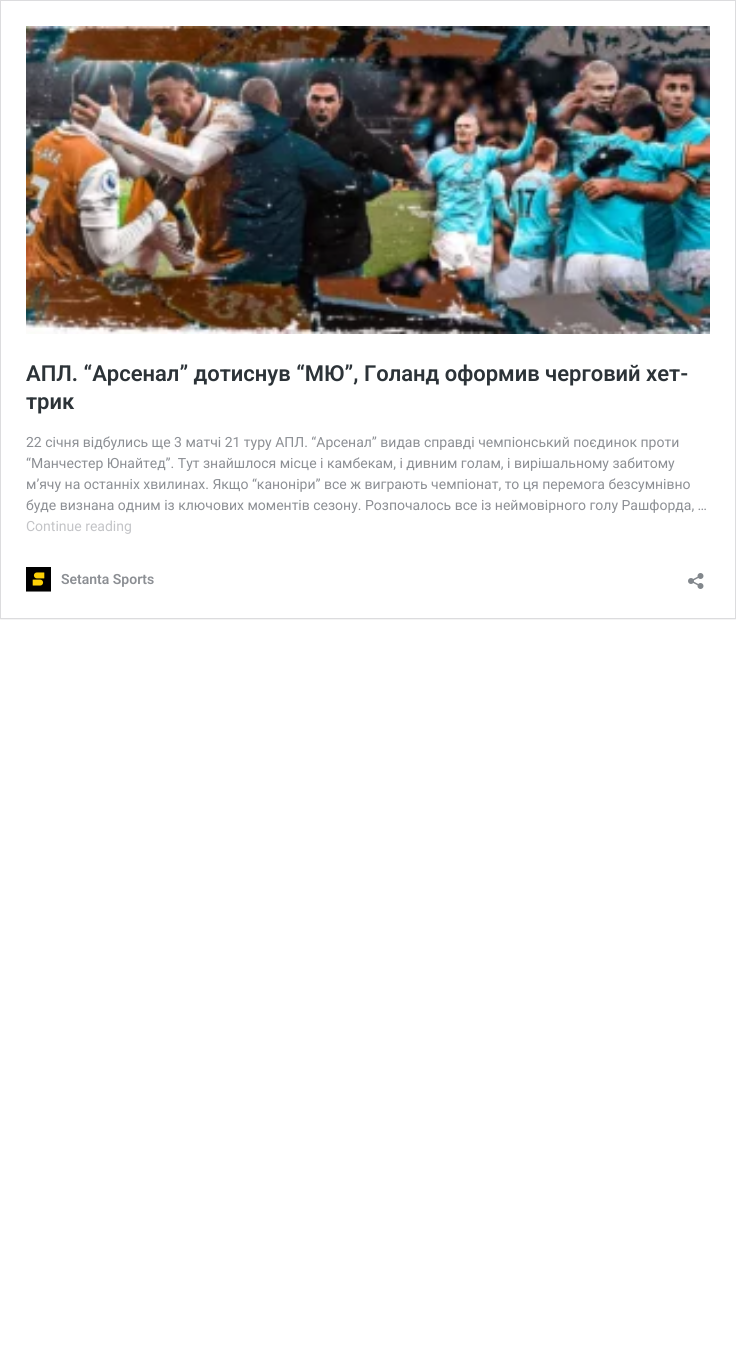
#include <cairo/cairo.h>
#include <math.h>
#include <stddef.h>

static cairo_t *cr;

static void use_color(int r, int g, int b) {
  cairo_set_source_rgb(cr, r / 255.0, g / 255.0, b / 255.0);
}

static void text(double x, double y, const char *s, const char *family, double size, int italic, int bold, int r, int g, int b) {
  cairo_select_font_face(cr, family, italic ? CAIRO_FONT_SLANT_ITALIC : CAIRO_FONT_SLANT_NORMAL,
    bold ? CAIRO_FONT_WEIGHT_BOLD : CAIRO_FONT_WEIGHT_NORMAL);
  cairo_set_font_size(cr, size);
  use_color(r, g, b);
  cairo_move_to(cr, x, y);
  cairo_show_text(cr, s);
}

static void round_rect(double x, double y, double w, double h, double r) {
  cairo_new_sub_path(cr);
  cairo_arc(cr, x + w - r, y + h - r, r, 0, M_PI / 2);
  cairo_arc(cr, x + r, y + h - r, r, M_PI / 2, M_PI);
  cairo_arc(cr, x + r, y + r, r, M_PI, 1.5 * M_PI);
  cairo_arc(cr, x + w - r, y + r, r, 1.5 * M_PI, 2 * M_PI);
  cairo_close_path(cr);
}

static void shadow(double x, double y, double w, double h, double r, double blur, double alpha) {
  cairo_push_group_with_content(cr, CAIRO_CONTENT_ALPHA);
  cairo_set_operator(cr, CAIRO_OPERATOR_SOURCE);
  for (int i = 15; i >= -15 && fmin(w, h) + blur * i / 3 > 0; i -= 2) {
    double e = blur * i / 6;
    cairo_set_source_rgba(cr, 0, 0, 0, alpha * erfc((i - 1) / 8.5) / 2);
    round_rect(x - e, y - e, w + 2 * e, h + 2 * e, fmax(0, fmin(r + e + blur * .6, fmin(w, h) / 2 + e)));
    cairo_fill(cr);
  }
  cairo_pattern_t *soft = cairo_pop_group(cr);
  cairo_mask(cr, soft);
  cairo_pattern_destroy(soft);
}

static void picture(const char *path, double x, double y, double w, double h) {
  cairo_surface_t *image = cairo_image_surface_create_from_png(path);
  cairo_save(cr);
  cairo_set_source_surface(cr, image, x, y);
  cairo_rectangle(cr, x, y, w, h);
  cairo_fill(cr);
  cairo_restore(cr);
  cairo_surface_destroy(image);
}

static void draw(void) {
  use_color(255, 255, 255);
  cairo_paint(cr);
  cairo_save(cr);
  cairo_rectangle(cr, 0, 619, 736, 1);
  cairo_clip(cr);
  use_color(0, 0, 0);
  shadow(0, 1, 736, 619, 0, 0.5, 0.05);
  cairo_restore(cr);
  cairo_rectangle(cr, 0.5, 0.5, 735, 618);
  use_color(220, 220, 222);
  cairo_set_line_width(cr, 1);
  cairo_stroke(cr);
  picture("img_01.png", 26, 26, 684, 308);
  picture("img_02.png", 26, 567, 25, 25);
  picture("img_03.png", 688, 573, 16, 16);
  text(26, 381, "АПЛ. “Арсенал” дотиснув “МЮ”, Голанд оформив черговий хет-", "Roboto SemiBold", 22, 0, 0, 44, 51, 56);
  text(26, 409, "трик", "Roboto SemiBold", 22, 0, 0, 44, 51, 56);
  text(26, 447, "22 січня відбулись ще 3 матчі 21 туру АПЛ. “Арсенал” видав справді чемпіонський поєдинок проти", "Roboto", 14, 0, 0, 140, 143, 148);
  text(26, 468, "“Манчестер Юнайтед”. Тут знайшлося місце і камбекам, і дивним голам, і вирішальному забитому", "Roboto", 14, 0, 0, 140, 143, 148);
  text(26, 489, "м’ячу на останніх хвилинах. Якщо “каноніри” все ж виграють чемпіонат, то ця перемога безсумнівно", "Roboto", 14, 0, 0, 140, 143, 148);
  text(26, 510, "буде визнана одним із ключових моментів сезону. Розпочалось все із неймовірного голу Рашфорда, …", "Roboto", 14, 0, 0, 140, 143, 148);
  text(26, 531, "Continue reading", "Roboto", 14, 0, 0, 195, 196, 199);
  text(61, 584, "Setanta Sports", "Roboto SemiBold", 14, 0, 0, 140, 143, 148);
}

int main(void) {
  cairo_surface_t *surface = cairo_image_surface_create(CAIRO_FORMAT_RGB24, 736, 1371);
  cr = cairo_create(surface);
  cairo_font_options_t *options = cairo_font_options_create();
  cairo_font_options_set_hint_metrics(options, CAIRO_HINT_METRICS_OFF);
  cairo_font_options_set_hint_style(options, CAIRO_HINT_STYLE_NONE);
  cairo_set_font_options(cr, options);
  cairo_set_miter_limit(cr, 4);
  draw();
  cairo_surface_write_to_png(surface, "out.png");
  cairo_font_options_destroy(options);
  cairo_destroy(cr);
  cairo_surface_destroy(surface);
  return 0;
}
